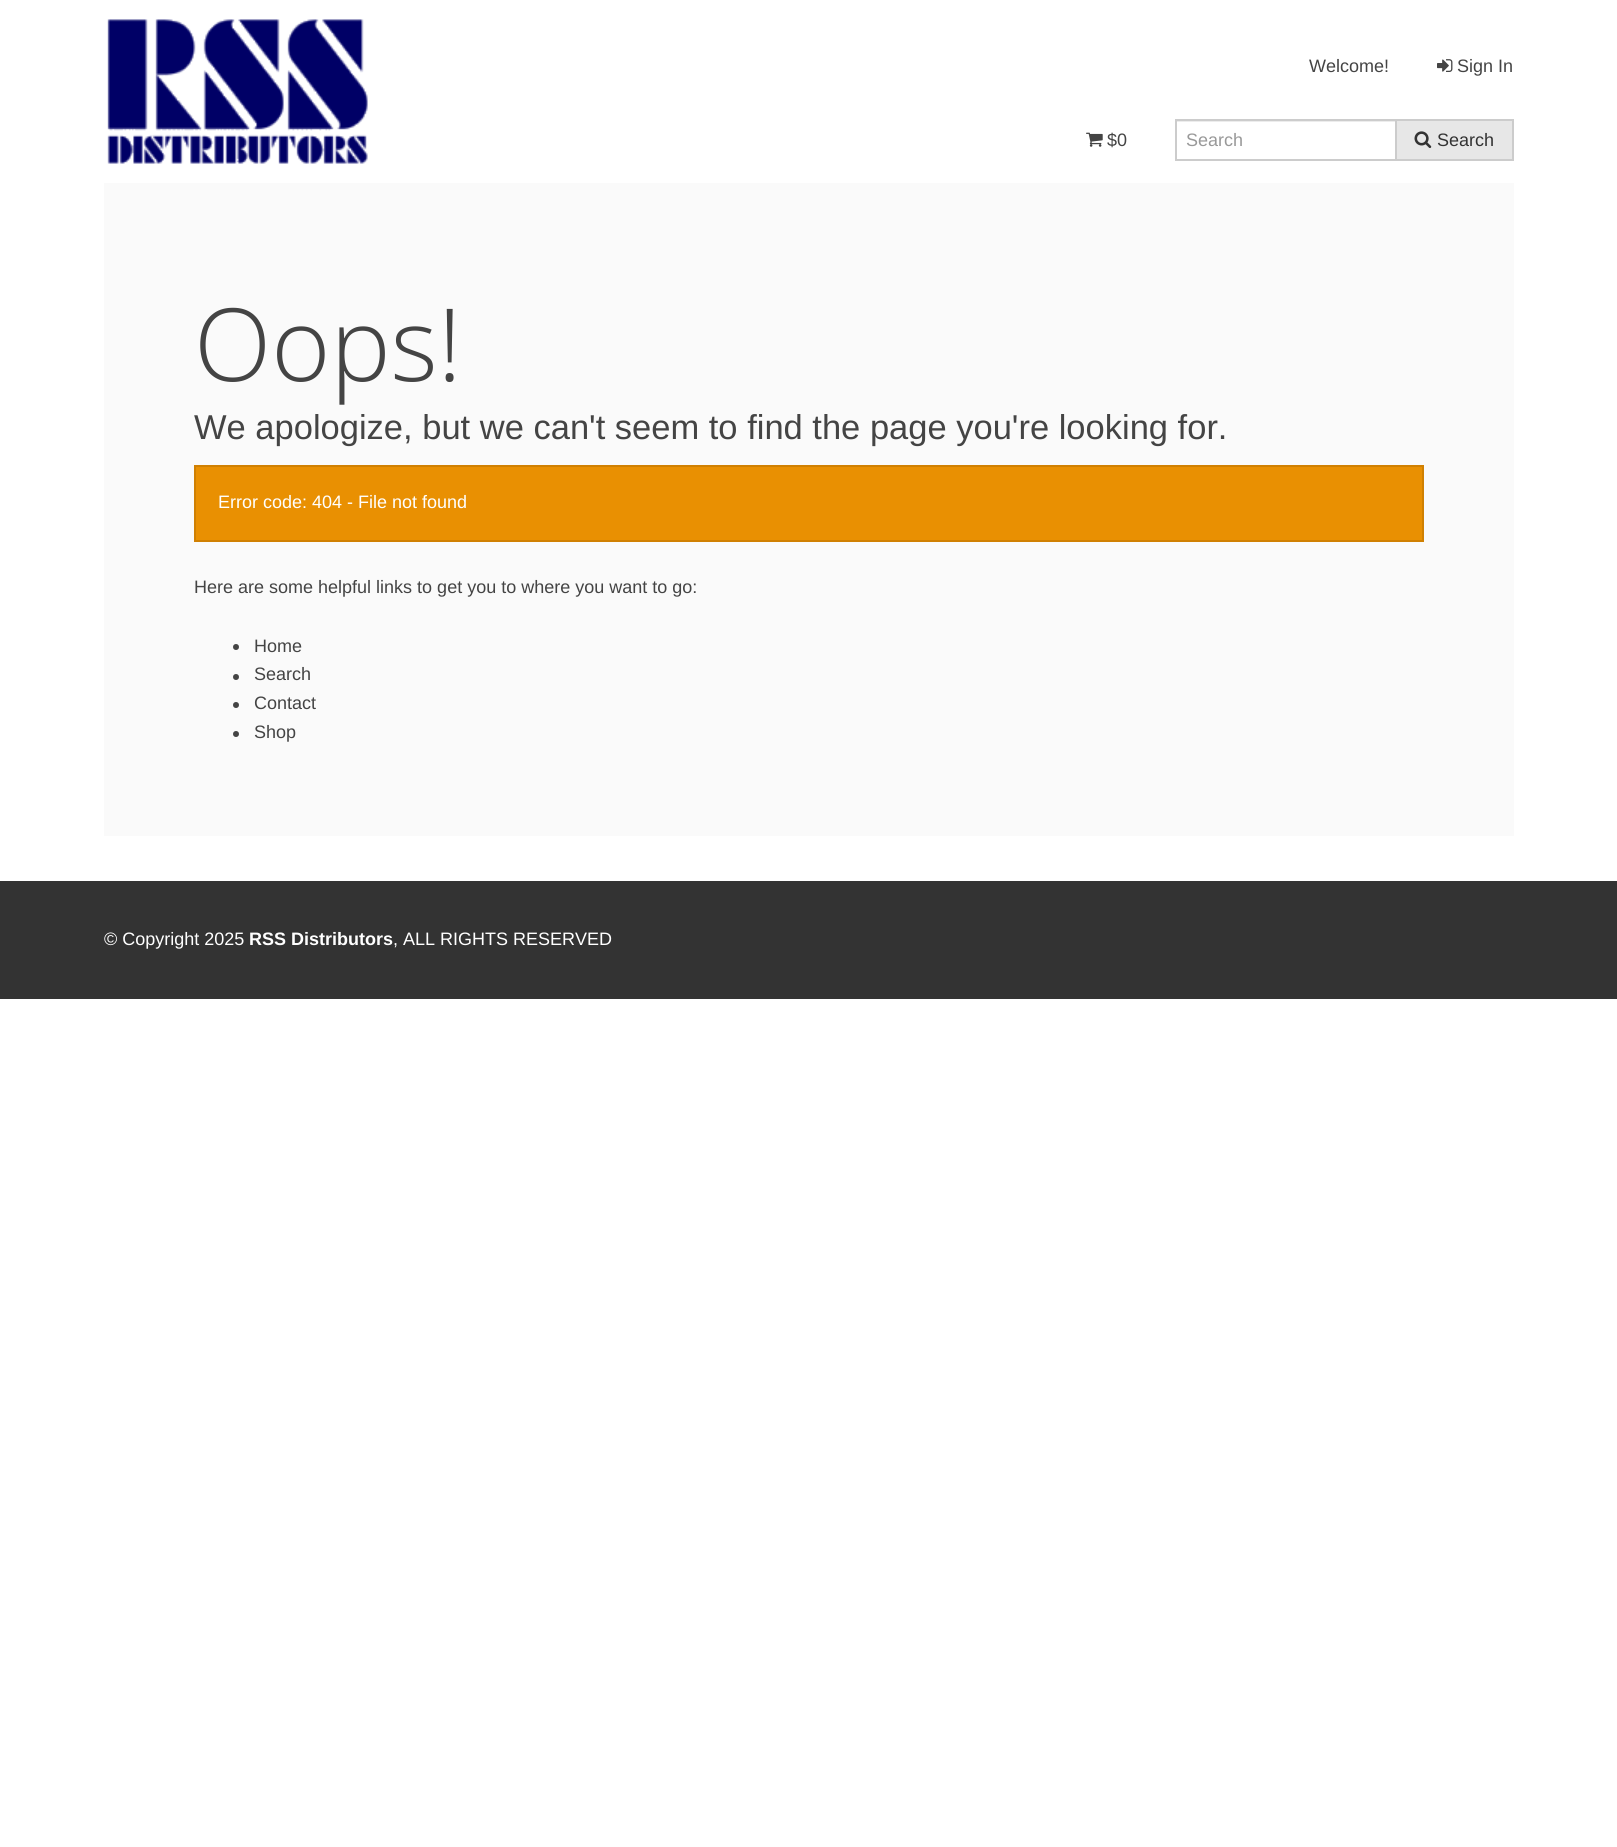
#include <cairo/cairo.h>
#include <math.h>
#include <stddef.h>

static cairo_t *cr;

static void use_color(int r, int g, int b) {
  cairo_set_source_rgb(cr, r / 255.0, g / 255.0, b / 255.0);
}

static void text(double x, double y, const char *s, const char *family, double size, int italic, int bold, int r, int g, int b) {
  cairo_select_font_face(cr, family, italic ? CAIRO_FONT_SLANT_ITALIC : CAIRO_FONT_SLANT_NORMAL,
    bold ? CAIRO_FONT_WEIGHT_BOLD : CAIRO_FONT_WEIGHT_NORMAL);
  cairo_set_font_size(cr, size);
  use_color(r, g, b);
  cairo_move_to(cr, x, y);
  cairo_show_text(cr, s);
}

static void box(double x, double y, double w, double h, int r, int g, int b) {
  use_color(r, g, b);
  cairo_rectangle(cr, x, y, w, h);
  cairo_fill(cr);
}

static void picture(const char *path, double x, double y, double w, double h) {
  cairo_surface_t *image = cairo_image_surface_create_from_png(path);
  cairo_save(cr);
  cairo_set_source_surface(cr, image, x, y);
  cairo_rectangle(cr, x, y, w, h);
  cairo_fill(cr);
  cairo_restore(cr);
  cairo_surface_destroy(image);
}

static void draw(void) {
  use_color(255, 255, 255);
  cairo_paint(cr);
  picture("img_01.png", 107, 19, 261, 145);
  picture("img_02.png", 1437, 59, 16, 13);
  picture("img_03.png", 1086, 132, 17, 15);
  box(1176, 121, 219, 1, 236, 236, 236);
  cairo_rectangle(cr, 1176, 120, 220, 40);
  use_color(204, 204, 204);
  cairo_stroke(cr);
  use_color(231, 231, 231);
  cairo_rectangle(cr, 1396, 120, 117, 40);
  cairo_fill_preserve(cr);
  use_color(204, 204, 204);
  cairo_stroke(cr);
  picture("img_04.png", 1414, 131, 18, 17);
  box(104, 183, 1410, 653, 250, 250, 250);
  use_color(233, 144, 2);
  cairo_rectangle(cr, 195, 466, 1228, 75);
  cairo_fill_preserve(cr);
  use_color(208, 128, 2);
  cairo_stroke(cr);
  use_color(68, 68, 68);
  cairo_arc(cr, 236, 647, 3, 0, 2 * M_PI);
  cairo_fill(cr);
  cairo_arc(cr, 236, 677, 3, 0, 2 * M_PI);
  cairo_fill(cr);
  cairo_arc(cr, 236, 705, 3, 0, 2 * M_PI);
  cairo_fill(cr);
  cairo_arc(cr, 236, 734, 3, 0, 2 * M_PI);
  cairo_fill(cr);
  box(0, 881, 1617, 118, 51, 51, 51);
  text(1309, 72, "Welcome!", "Liberation Sans", 18, 0, 0, 68, 68, 68);
  text(1457, 72, "Sign In", "Liberation Sans", 18, 0, 0, 68, 68, 68);
  text(1107, 146, "$0", "Liberation Sans", 18, 0, 0, 68, 68, 68);
  text(1186, 146, "Search", "Liberation Sans", 18, 0, 0, 153, 153, 153);
  text(1437, 146, "Search", "Liberation Sans", 18, 0, 0, 51, 51, 51);
  text(194, 381, "Oops!", "Open Sans Light", 101, 0, 0, 68, 68, 68);
  text(194, 439, "We apologize, but we can't seem to find the page you're looking for.", "Liberation Sans", 34.5, 0, 0, 68, 68, 68);
  text(218, 508, "Error code: 404 - File not found", "Liberation Sans", 18, 0, 0, 255, 255, 255);
  text(194, 593, "Here are some helpful links to get you to where you want to go:", "Liberation Sans", 18, 0, 0, 68, 68, 68);
  text(254, 652, "Home", "Liberation Sans", 18, 0, 0, 68, 68, 68);
  text(254, 680, "Search", "Liberation Sans", 18, 0, 0, 68, 68, 68);
  text(254, 709, "Contact", "Liberation Sans", 18, 0, 0, 68, 68, 68);
  text(254, 738, "Shop", "Liberation Sans", 18, 0, 0, 68, 68, 68);
  text(104, 945, "© Copyright 2025", "Liberation Sans", 18, 0, 0, 255, 255, 255);
  text(249, 945, "RSS Distributors", "Liberation Sans", 18, 0, 1, 255, 255, 255);
  text(393, 945, ", ALL RIGHTS RESERVED", "Liberation Sans", 18, 0, 0, 255, 255, 255);
}

int main(void) {
  cairo_surface_t *surface = cairo_image_surface_create(CAIRO_FORMAT_RGB24, 1617, 1847);
  cr = cairo_create(surface);
  cairo_font_options_t *options = cairo_font_options_create();
  cairo_font_options_set_hint_metrics(options, CAIRO_HINT_METRICS_OFF);
  cairo_font_options_set_hint_style(options, CAIRO_HINT_STYLE_NONE);
  cairo_set_font_options(cr, options);
  cairo_set_miter_limit(cr, 4);
  draw();
  cairo_surface_write_to_png(surface, "out.png");
  cairo_font_options_destroy(options);
  cairo_destroy(cr);
  cairo_surface_destroy(surface);
  return 0;
}
